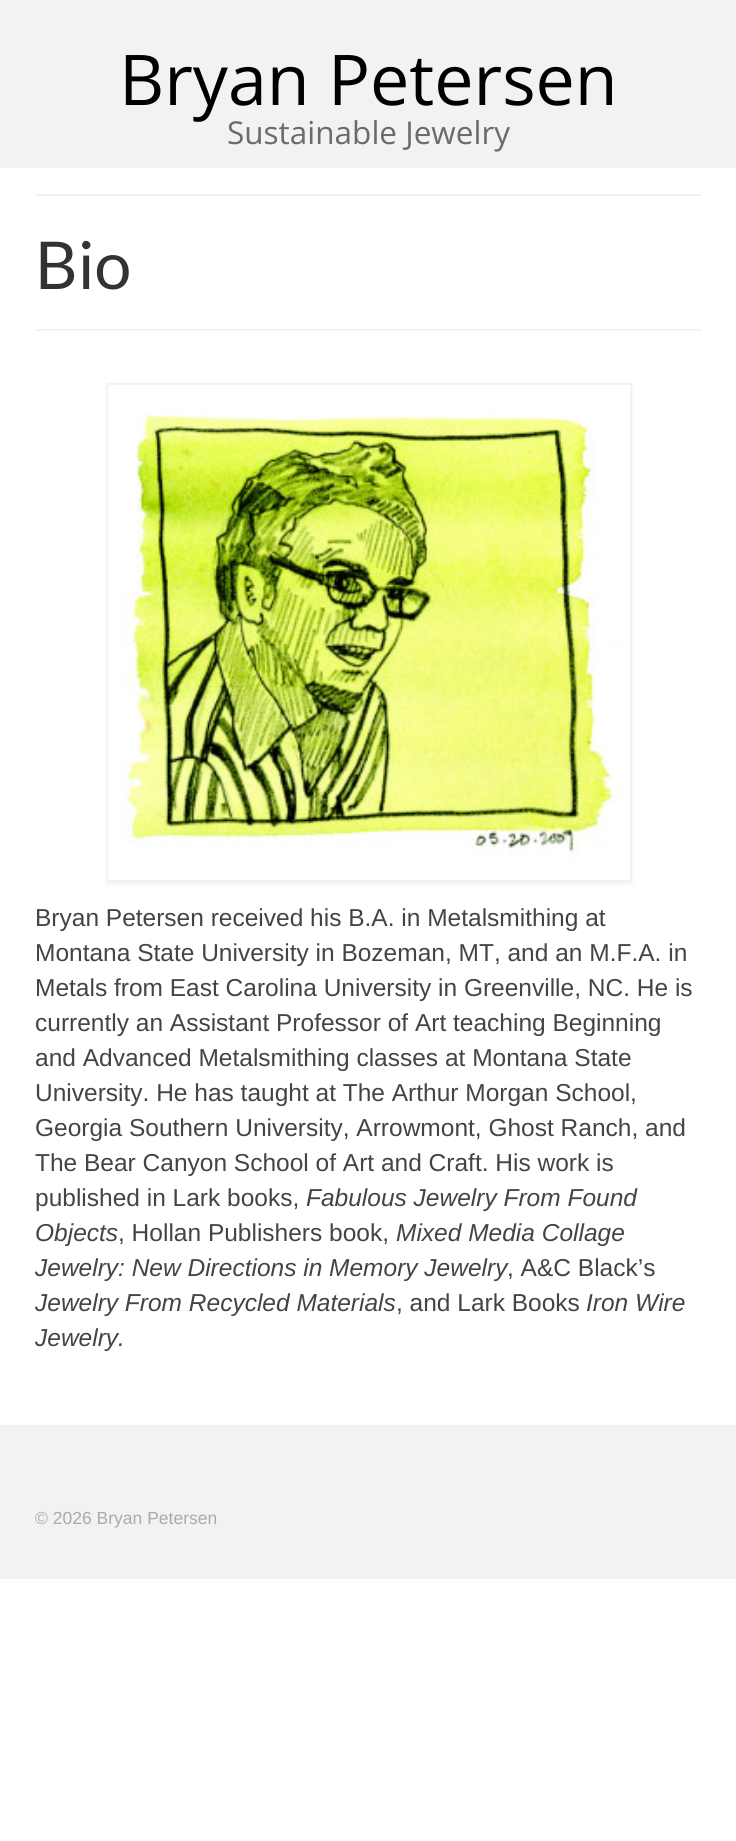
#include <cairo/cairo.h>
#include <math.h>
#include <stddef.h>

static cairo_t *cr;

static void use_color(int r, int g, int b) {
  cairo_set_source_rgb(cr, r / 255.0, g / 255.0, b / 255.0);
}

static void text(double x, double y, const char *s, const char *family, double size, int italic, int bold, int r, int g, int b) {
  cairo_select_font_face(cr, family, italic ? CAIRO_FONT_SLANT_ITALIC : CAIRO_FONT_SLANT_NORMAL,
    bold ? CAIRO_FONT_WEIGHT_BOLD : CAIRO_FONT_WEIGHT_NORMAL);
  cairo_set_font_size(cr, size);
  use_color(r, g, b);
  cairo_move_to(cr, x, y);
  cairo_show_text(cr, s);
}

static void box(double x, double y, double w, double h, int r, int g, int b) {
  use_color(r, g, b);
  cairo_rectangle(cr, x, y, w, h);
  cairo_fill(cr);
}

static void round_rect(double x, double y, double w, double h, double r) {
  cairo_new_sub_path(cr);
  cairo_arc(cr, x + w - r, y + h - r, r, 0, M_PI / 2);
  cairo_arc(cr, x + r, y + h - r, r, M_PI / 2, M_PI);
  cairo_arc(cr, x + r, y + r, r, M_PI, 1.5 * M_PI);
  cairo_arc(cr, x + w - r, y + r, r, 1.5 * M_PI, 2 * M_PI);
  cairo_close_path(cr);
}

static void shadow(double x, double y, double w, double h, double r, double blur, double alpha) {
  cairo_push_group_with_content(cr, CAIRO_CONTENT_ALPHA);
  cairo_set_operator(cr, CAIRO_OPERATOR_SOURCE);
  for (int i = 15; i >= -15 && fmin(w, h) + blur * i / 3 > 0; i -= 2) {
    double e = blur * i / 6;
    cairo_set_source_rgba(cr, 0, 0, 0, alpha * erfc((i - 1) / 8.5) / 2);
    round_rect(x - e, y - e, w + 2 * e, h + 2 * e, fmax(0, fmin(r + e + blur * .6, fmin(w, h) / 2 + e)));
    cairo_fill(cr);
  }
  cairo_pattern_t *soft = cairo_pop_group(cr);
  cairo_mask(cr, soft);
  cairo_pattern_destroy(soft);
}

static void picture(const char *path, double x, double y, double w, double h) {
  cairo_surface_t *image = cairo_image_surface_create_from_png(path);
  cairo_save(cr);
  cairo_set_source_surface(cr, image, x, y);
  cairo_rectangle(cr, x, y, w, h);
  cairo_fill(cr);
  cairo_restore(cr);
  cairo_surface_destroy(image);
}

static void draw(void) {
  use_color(255, 255, 255);
  cairo_paint(cr);
  box(0, 0, 736, 168, 242, 242, 242);
  box(35, 194, 667, 2, 242, 242, 242);
  box(35, 329, 667, 2, 242, 242, 242);
  cairo_save(cr);
  cairo_set_fill_rule(cr, CAIRO_FILL_RULE_EVEN_ODD);
  cairo_new_path(cr);
  cairo_move_to(cr, 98, 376);
  cairo_line_to(cr, 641, 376);
  cairo_line_to(cr, 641, 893);
  cairo_line_to(cr, 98, 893);
  cairo_close_path(cr);
  cairo_move_to(cr, 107, 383);
  cairo_line_to(cr, 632, 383);
  cairo_line_to(cr, 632, 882);
  cairo_line_to(cr, 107, 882);
  cairo_close_path(cr);
  cairo_clip(cr);
  use_color(0, 0, 0);
  shadow(107, 385, 525, 499, 0, 2.5, 0.06);
  cairo_restore(cr);
  cairo_rectangle(cr, 108, 384, 523, 497);
  cairo_stroke(cr);
  picture("img_01.png", 108, 385, 515, 495);
  box(0, 1425, 736, 154, 242, 242, 242);
  text(119, 105, "Bryan Petersen", "Open Sans", 70, 0, 0, 0, 0, 0);
  text(227, 144, "Sustainable Jewelry", "Open Sans", 31.5, 0, 0, 107, 107, 107);
  text(35, 289, "Bio", "Lato", 66, 0, 0, 51, 51, 51);
  text(35, 926, "Bryan Petersen received his B.A. in Metalsmithing at", "Liberation Sans", 24.5, 0, 0, 68, 68, 68);
  text(35, 961, "Montana State University in Bozeman, MT, and an M.F.A. in", "Liberation Sans", 24.5, 0, 0, 68, 68, 68);
  text(35, 996, "Metals from East Carolina University in Greenville, NC. He is", "Liberation Sans", 24.5, 0, 0, 68, 68, 68);
  text(35, 1031, "currently an Assistant Professor of Art teaching Beginning", "Liberation Sans", 24.5, 0, 0, 68, 68, 68);
  text(35, 1066, "and Advanced Metalsmithing classes at Montana State", "Liberation Sans", 24.5, 0, 0, 68, 68, 68);
  text(35, 1101, "University. He has taught at The Arthur Morgan School,", "Liberation Sans", 24.5, 0, 0, 68, 68, 68);
  text(35, 1136, "Georgia Southern University, Arrowmont, Ghost Ranch, and", "Liberation Sans", 24.5, 0, 0, 68, 68, 68);
  text(35, 1171, "The Bear Canyon School of Art and Craft. His work is", "Liberation Sans", 24.5, 0, 0, 68, 68, 68);
  text(35, 1206, "published in Lark books,", "Liberation Sans", 24.5, 0, 0, 68, 68, 68);
  text(306, 1206, "Fabulous Jewelry From Found", "Liberation Sans", 24.5, 1, 0, 68, 68, 68);
  text(35, 1241, "Objects", "Liberation Sans", 24.5, 1, 0, 68, 68, 68);
  text(118, 1241, ", Hollan Publishers book,", "Liberation Sans", 24.5, 0, 0, 68, 68, 68);
  text(396, 1241, "Mixed Media Collage", "Liberation Sans", 24.5, 1, 0, 68, 68, 68);
  text(35, 1276, "Jewelry: New Directions in Memory Jewelry", "Liberation Sans", 24.5, 1, 0, 68, 68, 68);
  text(507, 1276, ", A&C Black’s", "Liberation Sans", 24.5, 0, 0, 68, 68, 68);
  text(35, 1311, "Jewelry From Recycled Materials", "Liberation Sans", 24.5, 1, 0, 68, 68, 68);
  text(396, 1311, ", and Lark Books", "Liberation Sans", 24.5, 0, 0, 68, 68, 68);
  text(586, 1311, "Iron Wire", "Liberation Sans", 24.5, 1, 0, 68, 68, 68);
  text(35, 1346, "Jewelry.", "Liberation Sans", 24.5, 1, 0, 68, 68, 68);
  text(35, 1524, "© 2026 Bryan Petersen", "Liberation Sans", 17.5, 0, 0, 170, 170, 170);
}

int main(void) {
  cairo_surface_t *surface = cairo_image_surface_create(CAIRO_FORMAT_RGB24, 736, 1841);
  cr = cairo_create(surface);
  cairo_font_options_t *options = cairo_font_options_create();
  cairo_font_options_set_hint_metrics(options, CAIRO_HINT_METRICS_OFF);
  cairo_font_options_set_hint_style(options, CAIRO_HINT_STYLE_NONE);
  cairo_set_font_options(cr, options);
  cairo_set_miter_limit(cr, 4);
  draw();
  cairo_surface_write_to_png(surface, "out.png");
  cairo_font_options_destroy(options);
  cairo_destroy(cr);
  cairo_surface_destroy(surface);
  return 0;
}
